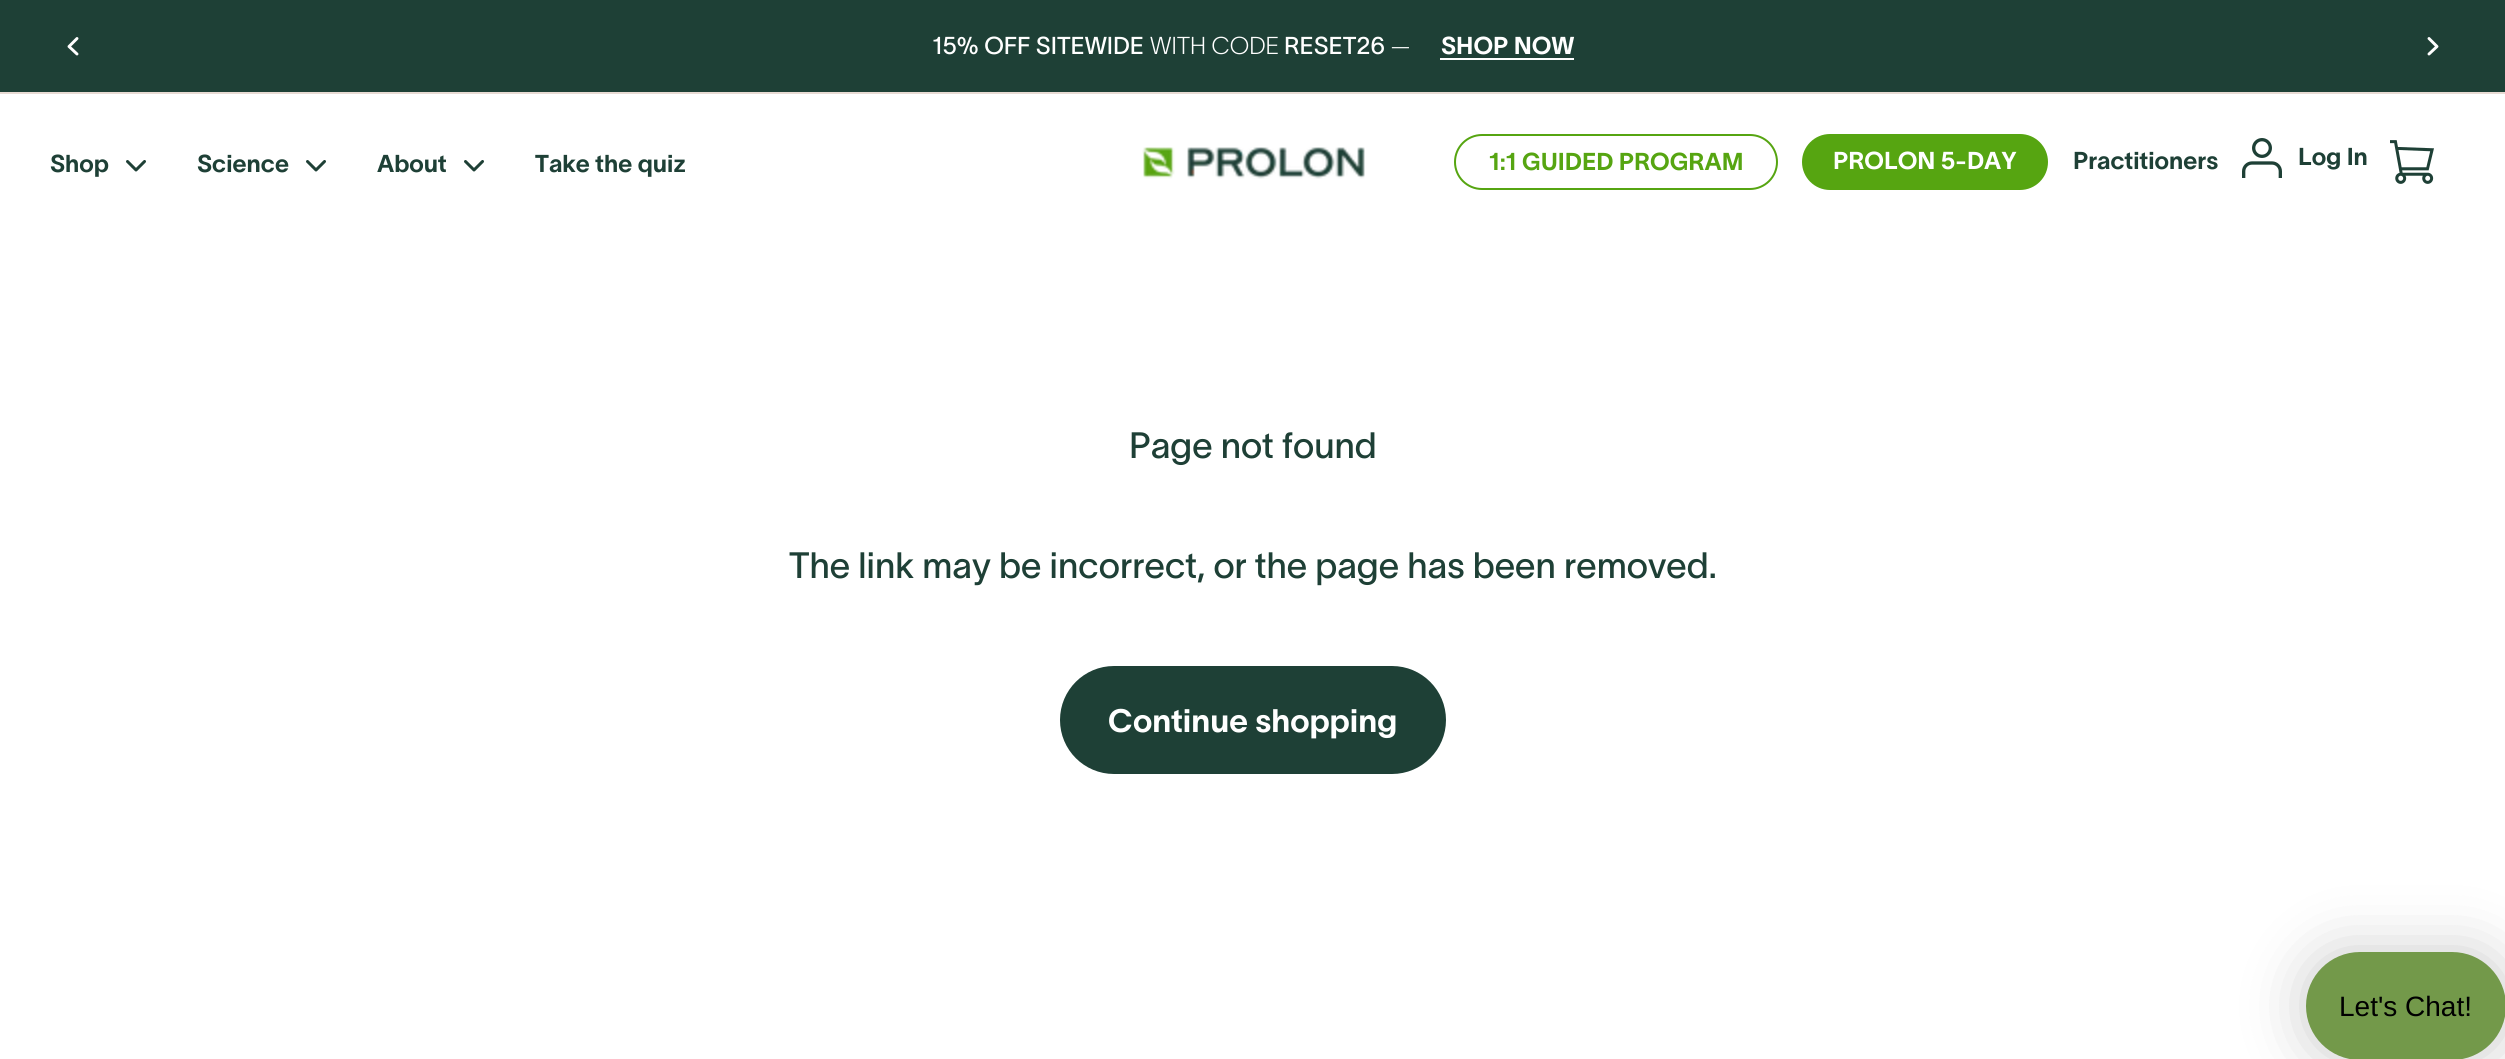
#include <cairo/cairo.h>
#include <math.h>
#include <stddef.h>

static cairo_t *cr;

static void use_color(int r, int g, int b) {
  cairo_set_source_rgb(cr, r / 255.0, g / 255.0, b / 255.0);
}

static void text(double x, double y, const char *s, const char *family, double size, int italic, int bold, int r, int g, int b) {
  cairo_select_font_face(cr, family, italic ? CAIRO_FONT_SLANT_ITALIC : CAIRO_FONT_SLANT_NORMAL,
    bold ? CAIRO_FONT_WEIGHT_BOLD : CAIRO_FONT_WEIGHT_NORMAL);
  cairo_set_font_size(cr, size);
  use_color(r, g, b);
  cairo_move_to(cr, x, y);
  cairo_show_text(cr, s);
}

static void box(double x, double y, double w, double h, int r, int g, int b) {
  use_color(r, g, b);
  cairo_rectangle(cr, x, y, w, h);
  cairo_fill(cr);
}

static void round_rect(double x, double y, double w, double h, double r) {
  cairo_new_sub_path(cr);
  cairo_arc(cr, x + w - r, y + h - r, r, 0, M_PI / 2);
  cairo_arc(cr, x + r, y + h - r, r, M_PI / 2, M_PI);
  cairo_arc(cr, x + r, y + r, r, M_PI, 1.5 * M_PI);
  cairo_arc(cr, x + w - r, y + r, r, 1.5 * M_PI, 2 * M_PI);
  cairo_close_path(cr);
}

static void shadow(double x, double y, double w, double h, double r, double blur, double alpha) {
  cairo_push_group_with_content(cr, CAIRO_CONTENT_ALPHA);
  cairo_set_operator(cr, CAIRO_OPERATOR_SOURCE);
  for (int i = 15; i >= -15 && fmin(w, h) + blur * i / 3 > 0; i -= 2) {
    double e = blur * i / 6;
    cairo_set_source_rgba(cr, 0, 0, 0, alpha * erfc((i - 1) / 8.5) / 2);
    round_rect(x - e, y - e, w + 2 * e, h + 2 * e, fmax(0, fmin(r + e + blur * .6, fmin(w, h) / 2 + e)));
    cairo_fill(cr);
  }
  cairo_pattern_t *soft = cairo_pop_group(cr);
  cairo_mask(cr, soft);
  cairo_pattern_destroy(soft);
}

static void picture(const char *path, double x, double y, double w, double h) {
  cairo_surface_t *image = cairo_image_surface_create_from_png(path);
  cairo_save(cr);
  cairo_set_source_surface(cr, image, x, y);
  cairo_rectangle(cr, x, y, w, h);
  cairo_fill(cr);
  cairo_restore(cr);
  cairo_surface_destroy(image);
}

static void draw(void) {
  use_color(255, 255, 255);
  cairo_paint(cr);
  box(0, 0, 2505, 92, 30, 64, 54);
  box(0, 92, 2505, 2, 232, 219, 212);
  box(1440, 58, 134, 2, 255, 255, 255);
  cairo_new_path(cr);
  cairo_move_to(cr, 77, 38.5);
  cairo_line_to(cr, 69, 46.5);
  cairo_line_to(cr, 77, 54);
  cairo_set_line_width(cr, 2.9);
  cairo_set_line_cap(cr, CAIRO_LINE_CAP_ROUND);
  cairo_set_line_join(cr, CAIRO_LINE_JOIN_ROUND);
  cairo_stroke(cr);
  cairo_new_path(cr);
  cairo_move_to(cr, 2429, 38.5);
  cairo_line_to(cr, 2437, 46.5);
  cairo_line_to(cr, 2429, 54);
  cairo_stroke(cr);
  picture("img_01.png", 126, 160, 20, 12);
  picture("img_01.png", 306, 160, 20, 12);
  picture("img_01.png", 464, 160, 20, 12);
  picture("img_02.png", 1142, 147, 223, 32);
  round_rect(1455, 135, 322, 54, 27);
  use_color(86, 165, 17);
  cairo_set_line_width(cr, 2);
  cairo_set_line_cap(cr, CAIRO_LINE_CAP_BUTT);
  cairo_set_line_join(cr, CAIRO_LINE_JOIN_MITER);
  cairo_stroke(cr);
  round_rect(1802, 134, 246, 56, 28);
  cairo_fill(cr);
  picture("img_03.png", 2242, 138, 40, 40);
  picture("img_04.png", 2390, 140, 44, 44);
  use_color(30, 64, 54);
  round_rect(1060, 666, 386, 108, 54);
  cairo_fill(cr);
  use_color(0, 0, 0);
  shadow(2304, 950, 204, 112, 56, 30, 0.2);
  use_color(115, 153, 74);
  round_rect(2308, 954, 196, 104, 52);
  cairo_fill_preserve(cr);
  cairo_set_line_width(cr, 4);
  cairo_stroke(cr);
  text(932, 54, "15% OFF SITEWIDE", "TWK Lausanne", 24, 0, 0, 255, 255, 255);
  text(1150, 54, "WITH CODE", "TWK Lausanne Thin", 24, 0, 0, 255, 255, 255);
  text(1284, 54, "RESET26", "TWK Lausanne", 24, 0, 0, 255, 255, 255);
  text(1390, 54, "—", "TWK Lausanne Thin", 24, 0, 0, 255, 255, 255);
  text(1441, 54, "SHOP NOW", "TWK Lausanne", 24, 0, 1, 255, 255, 255);
  text(50, 172, "Shop", "TWK Lausanne", 24, 0, 1, 30, 64, 54);
  text(197, 172, "Science", "TWK Lausanne", 24, 0, 1, 30, 64, 54);
  text(377, 172, "About", "TWK Lausanne", 24, 0, 1, 30, 64, 54);
  text(535, 172, "Take the quiz", "TWK Lausanne", 24, 0, 1, 30, 64, 54);
  text(1489, 170, "1:1 GUIDED PROGRAM", "TWK Lausanne", 24, 0, 1, 86, 165, 17);
  text(1833, 169, "PROLON 5-DAY", "TWK Lausanne", 24, 0, 1, 255, 255, 255);
  text(2073, 169, "Practitioners", "TWK Lausanne", 24, 0, 1, 30, 64, 54);
  text(2298, 165, "Log In", "TWK Lausanne", 24, 0, 1, 30, 64, 54);
  text(1129, 458, "Page not found", "TWK Lausanne", 36, 0, 0, 30, 64, 54);
  text(789, 578, "The link may be incorrect, or the page has been removed.", "TWK Lausanne", 36, 0, 0, 30, 64, 54);
  text(1108, 732, "Continue shopping", "TWK Lausanne", 32, 0, 1, 255, 255, 255);
  text(2339, 1016, "Let's Chat!", "Liberation Sans", 28, 0, 0, 0, 0, 0);
}

int main(void) {
  cairo_surface_t *surface = cairo_image_surface_create(CAIRO_FORMAT_RGB24, 2505, 1059);
  cr = cairo_create(surface);
  cairo_font_options_t *options = cairo_font_options_create();
  cairo_font_options_set_hint_metrics(options, CAIRO_HINT_METRICS_OFF);
  cairo_font_options_set_hint_style(options, CAIRO_HINT_STYLE_NONE);
  cairo_set_font_options(cr, options);
  cairo_set_miter_limit(cr, 4);
  draw();
  cairo_surface_write_to_png(surface, "out.png");
  cairo_font_options_destroy(options);
  cairo_destroy(cr);
  cairo_surface_destroy(surface);
  return 0;
}
